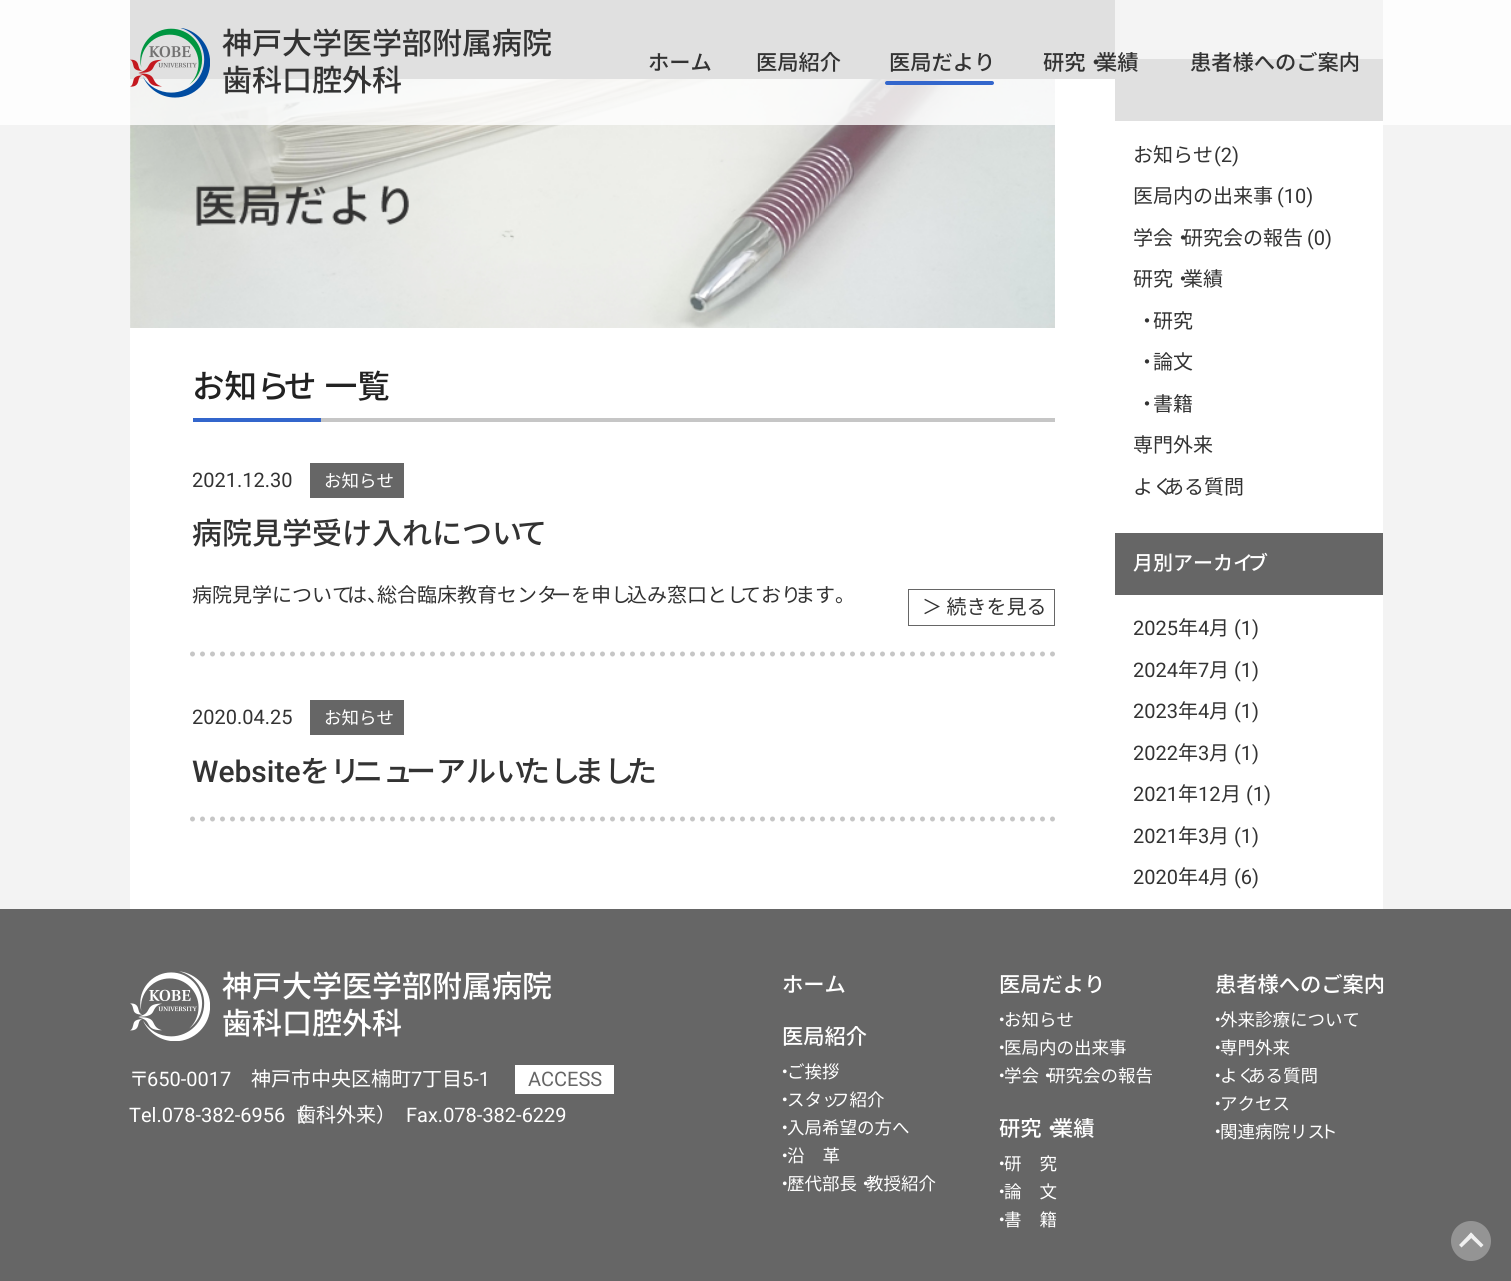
#include <cairo/cairo.h>
#include <math.h>
#include <stddef.h>

static cairo_t *cr;

static void use_color(int r, int g, int b) {
  cairo_set_source_rgb(cr, r / 255.0, g / 255.0, b / 255.0);
}

static void text(double x, double y, const char *s, const char *family, double size, int italic, int bold, int r, int g, int b) {
  cairo_select_font_face(cr, family, italic ? CAIRO_FONT_SLANT_ITALIC : CAIRO_FONT_SLANT_NORMAL,
    bold ? CAIRO_FONT_WEIGHT_BOLD : CAIRO_FONT_WEIGHT_NORMAL);
  cairo_set_font_size(cr, size);
  use_color(r, g, b);
  cairo_move_to(cr, x, y);
  cairo_show_text(cr, s);
}

static void spaced_text(double x, double y, const char *s, double letter, double word) {
  cairo_move_to(cr, x, y);
  while (*s) {
    char ch[5] = {0};
    int n = 0;
    do ch[n++] = *s++; while ((*s & 0xC0) == 0x80);
    cairo_show_text(cr, ch);
    cairo_rel_move_to(cr, letter + word * (*ch == ' '), 0);
  }
}

static void box(double x, double y, double w, double h, int r, int g, int b) {
  use_color(r, g, b);
  cairo_rectangle(cr, x, y, w, h);
  cairo_fill(cr);
}

static void round_rect(double x, double y, double w, double h, double r) {
  cairo_new_sub_path(cr);
  cairo_arc(cr, x + w - r, y + h - r, r, 0, M_PI / 2);
  cairo_arc(cr, x + r, y + h - r, r, M_PI / 2, M_PI);
  cairo_arc(cr, x + r, y + r, r, M_PI, 1.5 * M_PI);
  cairo_arc(cr, x + w - r, y + r, r, 1.5 * M_PI, 2 * M_PI);
  cairo_close_path(cr);
}

static void picture(const char *path, double x, double y, double w, double h) {
  cairo_surface_t *image = cairo_image_surface_create_from_png(path);
  cairo_save(cr);
  cairo_set_source_surface(cr, image, x, y);
  cairo_rectangle(cr, x, y, w, h);
  cairo_fill(cr);
  cairo_restore(cr);
  cairo_surface_destroy(image);
}

static void draw(void) {
  use_color(243, 243, 243);
  cairo_paint(cr);
  box(130, 0, 985, 79, 102, 102, 102);
  box(130, 79, 985, 830, 255, 255, 255);
  picture("img_02.png", 130, 79, 925, 249);
  box(1115, 121, 268, 788, 255, 255, 255);
  box(1115, 0, 268, 59, 198, 198, 198);
  box(1115, 59, 268, 62, 102, 102, 102);
  cairo_set_source_rgba(cr, 1, 1, 1, 0.8);
  cairo_rectangle(cr, 0, 0, 1511, 125);
  cairo_fill(cr);
  picture("img_01.png", 130, 28, 80, 70);
  use_color(51, 102, 204);
  round_rect(885, 81, 109, 4, 2);
  cairo_fill(cr);
  box(193, 418, 128, 4, 51, 102, 204);
  box(321, 418, 734, 4, 198, 198, 198);
  box(310, 463, 94, 35, 102, 102, 102);
  cairo_rectangle(cr, 908.5, 589.5, 146, 36);
  cairo_set_line_width(cr, 1);
  cairo_stroke(cr);
  cairo_new_path(cr);
  cairo_move_to(cr, 192.5, 654);
  cairo_line_to(cr, 1055, 654);
  use_color(198, 198, 198);
  cairo_set_line_width(cr, 5);
  cairo_set_line_cap(cr, CAIRO_LINE_CAP_ROUND);
  cairo_set_dash(cr, (double[]){0, 10}, 2, 0);
  cairo_stroke(cr);
  box(310, 700, 94, 35, 102, 102, 102);
  cairo_new_path(cr);
  cairo_move_to(cr, 192.5, 819);
  cairo_line_to(cr, 1055, 819);
  use_color(198, 198, 198);
  cairo_stroke(cr);
  box(1115, 533, 268, 62, 102, 102, 102);
  box(0, 909, 1511, 372, 102, 102, 102);
  picture("img_03.png", 130, 971, 80, 70);
  box(515, 1065, 99, 29, 255, 255, 255);
  use_color(148, 148, 148);
  cairo_arc(cr, 1471, 1241, 20, 0, 2 * M_PI);
  cairo_fill(cr);
  use_color(240, 240, 240);
  cairo_new_path(cr);
  cairo_move_to(cr, 1471, 1232.5);
  cairo_line_to(cr, 1483.5, 1245);
  cairo_line_to(cr, 1481, 1247.5);
  cairo_line_to(cr, 1468.5, 1235.5);
  cairo_close_path(cr);
  cairo_fill(cr);
  cairo_new_path(cr);
  cairo_move_to(cr, 1471, 1232.5);
  cairo_line_to(cr, 1474, 1235.5);
  cairo_line_to(cr, 1461.5, 1247.5);
  cairo_line_to(cr, 1459, 1245);
  cairo_close_path(cr);
  cairo_fill(cr);
  text(222, 54, "神戸大学医学部附属病院", "Noto Sans JP Medium", 30, 0, 0, 51, 51, 51);
  text(222, 91, "歯科口腔外科", "Noto Sans JP Medium", 30, 0, 0, 51, 51, 51);
  text(648, 70, "ホーム", "Noto Sans JP Medium", 21.25, 0, 0, 51, 51, 51);
  text(756, 70, "医局紹介", "Noto Sans JP Medium", 21.25, 0, 0, 51, 51, 51);
  text(889, 70, "医局だより", "Noto Sans JP Medium", 21.25, 0, 0, 51, 51, 51);
  text(1043, 70, "研究・", "Noto Sans JP Medium", 21.25, 0, 0, 51, 51, 51);
  text(1096, 70, "業績", "Noto Sans JP Medium", 21.25, 0, 0, 51, 51, 51);
  text(1190, 70, "患者様へのご案内", "Noto Sans JP Medium", 21.25, 0, 0, 51, 51, 51);
  cairo_set_font_size(cr, 32.5);
  use_color(34, 34, 34);
  spaced_text(192, 398, "お知ら", 0, 1);
  spaced_text(284, 398, "せ 一覧", 0, 1);
  text(192, 487, "2021.12.30", "Roboto", 20, 0, 0, 51, 51, 51);
  text(324, 487, "お知らせ", "Noto Sans JP", 17.5, 0, 0, 255, 255, 255);
  text(192, 544, "病院見学受け入れについ", "Noto Sans JP Medium", 30, 0, 0, 51, 51, 51);
  text(517, 544, "て", "Noto Sans JP Medium", 30, 0, 0, 51, 51, 51);
  text(192, 602, "病院見学について", "Noto Sans JP", 20, 0, 0, 51, 51, 51);
  text(347, 602, "は、", "Noto Sans JP", 20, 0, 0, 51, 51, 51);
  text(377, 602, "総合臨床教育センタ", "Noto Sans JP", 20, 0, 0, 51, 51, 51);
  text(551, 602, "ーを申し", "Noto Sans JP", 20, 0, 0, 51, 51, 51);
  text(627, 602, "込み窓口とし", "Noto Sans JP", 20, 0, 0, 51, 51, 51);
  text(741, 602, "ており", "Noto Sans JP", 20, 0, 0, 51, 51, 51);
  text(795, 602, "ます。", "Noto Sans JP", 20, 0, 0, 51, 51, 51);
  text(922, 614, "＞ 続きを見る", "Noto Sans JP", 20, 0, 0, 51, 51, 51);
  text(192, 724, "2020.04.25", "Roboto", 20, 0, 0, 51, 51, 51);
  text(324, 724, "お知らせ", "Noto Sans JP", 17.5, 0, 0, 255, 255, 255);
  text(192, 782, "Website", "Roboto Medium", 30, 0, 0, 51, 51, 51);
  text(300, 782, "をリ", "Noto Sans JP Medium", 30, 0, 0, 51, 51, 51);
  text(353, 782, "ニュ", "Noto Sans JP Medium", 30, 0, 0, 51, 51, 51);
  text(406, 782, "ーアルい", "Noto Sans JP Medium", 30, 0, 0, 51, 51, 51);
  text(520, 782, "たし", "Noto Sans JP Medium", 30, 0, 0, 51, 51, 51);
  text(574, 782, "まし", "Noto Sans JP Medium", 30, 0, 0, 51, 51, 51);
  text(627, 782, "た", "Noto Sans JP Medium", 30, 0, 0, 51, 51, 51);
  text(1133, 162, "お知らせ", "Noto Sans JP", 20, 0, 0, 51, 51, 51);
  text(1214, 162, "(2)", "Roboto", 20, 0, 0, 51, 51, 51);
  text(1133, 203, "医局内の出来事", "Noto Sans JP", 20, 0, 0, 51, 51, 51);
  text(1277, 203, "(10)", "Roboto", 20, 0, 0, 51, 51, 51);
  text(1133, 245, "学会・", "Noto Sans JP", 20, 0, 0, 51, 51, 51);
  text(1183, 245, "研究会の報告", "Noto Sans JP", 20, 0, 0, 51, 51, 51);
  text(1307, 245, "(0)", "Roboto", 20, 0, 0, 51, 51, 51);
  text(1133, 286, "研究・", "Noto Sans JP", 20, 0, 0, 51, 51, 51);
  text(1183, 286, "業績", "Noto Sans JP", 20, 0, 0, 51, 51, 51);
  text(1137, 328, "・", "Noto Sans JP", 20, 0, 0, 51, 51, 51);
  text(1153, 328, "研究", "Noto Sans JP", 20, 0, 0, 51, 51, 51);
  text(1137, 369, "・", "Noto Sans JP", 20, 0, 0, 51, 51, 51);
  text(1153, 369, "論文", "Noto Sans JP", 20, 0, 0, 51, 51, 51);
  text(1137, 411, "・", "Noto Sans JP", 20, 0, 0, 51, 51, 51);
  text(1153, 411, "書籍", "Noto Sans JP", 20, 0, 0, 51, 51, 51);
  text(1133, 452, "専門外来", "Noto Sans JP", 20, 0, 0, 51, 51, 51);
  text(1133, 494, "よく", "Noto Sans JP", 20, 0, 0, 51, 51, 51);
  text(1164, 494, "ある質問", "Noto Sans JP", 20, 0, 0, 51, 51, 51);
  text(1133, 570, "月別アーカイ", "Noto Sans JP Medium", 20, 0, 0, 255, 255, 255);
  text(1248, 570, "ブ", "Noto Sans JP Medium", 20, 0, 0, 255, 255, 255);
  text(1133, 635, "2025", "Roboto", 20, 0, 0, 51, 51, 51);
  text(1178, 635, "年", "Noto Sans JP", 20, 0, 0, 51, 51, 51);
  text(1198, 635, "4", "Roboto", 20, 0, 0, 51, 51, 51);
  text(1209, 635, "月", "Noto Sans JP", 20, 0, 0, 51, 51, 51);
  text(1234, 635, "(1)", "Roboto", 20, 0, 0, 51, 51, 51);
  text(1133, 677, "2024", "Roboto", 20, 0, 0, 51, 51, 51);
  text(1178, 677, "年", "Noto Sans JP", 20, 0, 0, 51, 51, 51);
  text(1198, 677, "7", "Roboto", 20, 0, 0, 51, 51, 51);
  text(1209, 677, "月", "Noto Sans JP", 20, 0, 0, 51, 51, 51);
  text(1234, 677, "(1)", "Roboto", 20, 0, 0, 51, 51, 51);
  text(1133, 718, "2023", "Roboto", 20, 0, 0, 51, 51, 51);
  text(1178, 718, "年", "Noto Sans JP", 20, 0, 0, 51, 51, 51);
  text(1198, 718, "4", "Roboto", 20, 0, 0, 51, 51, 51);
  text(1209, 718, "月", "Noto Sans JP", 20, 0, 0, 51, 51, 51);
  text(1234, 718, "(1)", "Roboto", 20, 0, 0, 51, 51, 51);
  text(1133, 760, "2022", "Roboto", 20, 0, 0, 51, 51, 51);
  text(1178, 760, "年", "Noto Sans JP", 20, 0, 0, 51, 51, 51);
  text(1198, 760, "3", "Roboto", 20, 0, 0, 51, 51, 51);
  text(1209, 760, "月", "Noto Sans JP", 20, 0, 0, 51, 51, 51);
  text(1234, 760, "(1)", "Roboto", 20, 0, 0, 51, 51, 51);
  text(1133, 801, "2021", "Roboto", 20, 0, 0, 51, 51, 51);
  text(1178, 801, "年", "Noto Sans JP", 20, 0, 0, 51, 51, 51);
  text(1198, 801, "12", "Roboto", 20, 0, 0, 51, 51, 51);
  text(1221, 801, "月", "Noto Sans JP", 20, 0, 0, 51, 51, 51);
  text(1246, 801, "(1)", "Roboto", 20, 0, 0, 51, 51, 51);
  text(1133, 843, "2021", "Roboto", 20, 0, 0, 51, 51, 51);
  text(1178, 843, "年", "Noto Sans JP", 20, 0, 0, 51, 51, 51);
  text(1198, 843, "3", "Roboto", 20, 0, 0, 51, 51, 51);
  text(1209, 843, "月", "Noto Sans JP", 20, 0, 0, 51, 51, 51);
  text(1234, 843, "(1)", "Roboto", 20, 0, 0, 51, 51, 51);
  text(1133, 884, "2020", "Roboto", 20, 0, 0, 51, 51, 51);
  text(1178, 884, "年", "Noto Sans JP", 20, 0, 0, 51, 51, 51);
  text(1198, 884, "4", "Roboto", 20, 0, 0, 51, 51, 51);
  text(1209, 884, "月", "Noto Sans JP", 20, 0, 0, 51, 51, 51);
  text(1234, 884, "(6)", "Roboto", 20, 0, 0, 51, 51, 51);
  text(222, 997, "神戸大学医学部附属病院", "Noto Sans JP Medium", 30, 0, 0, 255, 255, 255);
  text(222, 1034, "歯科口腔外科", "Noto Sans JP Medium", 30, 0, 0, 255, 255, 255);
  text(129, 1086, "〒", "Noto Sans JP", 20, 0, 0, 255, 255, 255);
  text(147, 1086, "650-0017", "Roboto", 20, 0, 0, 255, 255, 255);
  text(251, 1086, "神戸市中央区楠町", "Noto Sans JP", 20, 0, 0, 255, 255, 255);
  text(411, 1086, "7", "Roboto", 20, 0, 0, 255, 255, 255);
  text(422, 1086, "丁目", "Noto Sans JP", 20, 0, 0, 255, 255, 255);
  text(462, 1086, "5-1", "Roboto", 20, 0, 0, 255, 255, 255);
  text(528, 1086, "ACCESS", "Roboto", 20, 0, 0, 102, 102, 102);
  text(129, 1122, "Tel.078-382-6956", "Roboto", 20, 0, 0, 255, 255, 255);
  text(286, 1122, "（", "Noto Sans JP", 20, 0, 0, 255, 255, 255);
  text(296, 1122, "歯科外来）", "Noto Sans JP", 20, 0, 0, 255, 255, 255);
  text(406, 1122, "Fax.078-382-6229", "Roboto", 20, 0, 0, 255, 255, 255);
  text(782, 992, "ホーム", "Noto Sans JP Medium", 21.25, 0, 0, 255, 255, 255);
  text(782, 1044, "医局紹介", "Noto Sans JP Medium", 21.25, 0, 0, 255, 255, 255);
  text(776, 1078, "・", "Noto Sans JP", 17.5, 0, 0, 255, 255, 255);
  text(787, 1078, "ご挨拶", "Noto Sans JP", 17.5, 0, 0, 255, 255, 255);
  text(776, 1106, "・", "Noto Sans JP", 17.5, 0, 0, 255, 255, 255);
  text(787, 1106, "スタッ", "Noto Sans JP", 17.5, 0, 0, 255, 255, 255);
  text(832, 1106, "フ紹介", "Noto Sans JP", 17.5, 0, 0, 255, 255, 255);
  text(776, 1134, "・", "Noto Sans JP", 17.5, 0, 0, 255, 255, 255);
  text(787, 1134, "入局希望の方へ", "Noto Sans JP", 17.5, 0, 0, 255, 255, 255);
  spaced_text(776, 1162, "・", 18, 0);
  spaced_text(787, 1162, "沿革", 18, 0);
  text(776, 1190, "・", "Noto Sans JP", 17.5, 0, 0, 255, 255, 255);
  text(787, 1190, "歴代部長・", "Noto Sans JP", 17.5, 0, 0, 255, 255, 255);
  text(866, 1190, "教授紹介", "Noto Sans JP", 17.5, 0, 0, 255, 255, 255);
  text(999, 992, "医局だより", "Noto Sans JP Medium", 21.25, 0, 0, 255, 255, 255);
  text(993, 1026, "・", "Noto Sans JP", 17.5, 0, 0, 255, 255, 255);
  text(1004, 1026, "お知らせ", "Noto Sans JP", 17.5, 0, 0, 255, 255, 255);
  text(993, 1054, "・", "Noto Sans JP", 17.5, 0, 0, 255, 255, 255);
  text(1004, 1054, "医局内の出来事", "Noto Sans JP", 17.5, 0, 0, 255, 255, 255);
  text(993, 1082, "・", "Noto Sans JP", 17.5, 0, 0, 255, 255, 255);
  text(1004, 1082, "学会・", "Noto Sans JP", 17.5, 0, 0, 255, 255, 255);
  text(1048, 1082, "研究会の報告", "Noto Sans JP", 17.5, 0, 0, 255, 255, 255);
  text(999, 1136, "研究・", "Noto Sans JP Medium", 21.25, 0, 0, 255, 255, 255);
  text(1052, 1136, "業績", "Noto Sans JP Medium", 21.25, 0, 0, 255, 255, 255);
  cairo_select_font_face(cr, "Noto Sans JP", CAIRO_FONT_SLANT_NORMAL, CAIRO_FONT_WEIGHT_NORMAL);
  cairo_set_font_size(cr, 17.5);
  spaced_text(993, 1170, "・", 18, 0);
  spaced_text(1004, 1170, "研究", 18, 0);
  spaced_text(993, 1198, "・", 18, 0);
  spaced_text(1004, 1198, "論文", 18, 0);
  spaced_text(993, 1226, "・", 18, 0);
  spaced_text(1004, 1226, "書籍", 18, 0);
  text(1215, 992, "患者様へのご案内", "Noto Sans JP Medium", 21.25, 0, 0, 255, 255, 255);
  text(1209, 1026, "・", "Noto Sans JP", 17.5, 0, 0, 255, 255, 255);
  text(1220, 1026, "外来診療について", "Noto Sans JP", 17.5, 0, 0, 255, 255, 255);
  text(1209, 1054, "・", "Noto Sans JP", 17.5, 0, 0, 255, 255, 255);
  text(1220, 1054, "専門外来", "Noto Sans JP", 17.5, 0, 0, 255, 255, 255);
  text(1209, 1082, "・", "Noto Sans JP", 17.5, 0, 0, 255, 255, 255);
  text(1220, 1082, "よく", "Noto Sans JP", 17.5, 0, 0, 255, 255, 255);
  text(1248, 1082, "ある質問", "Noto Sans JP", 17.5, 0, 0, 255, 255, 255);
  text(1209, 1110, "・", "Noto Sans JP", 17.5, 0, 0, 255, 255, 255);
  text(1220, 1110, "アクセス", "Noto Sans JP", 17.5, 0, 0, 255, 255, 255);
  text(1209, 1138, "・", "Noto Sans JP", 17.5, 0, 0, 255, 255, 255);
  text(1220, 1138, "関連病院リス", "Noto Sans JP", 17.5, 0, 0, 255, 255, 255);
  text(1320, 1138, "ト", "Noto Sans JP", 17.5, 0, 0, 255, 255, 255);
}

int main(void) {
  cairo_surface_t *surface = cairo_image_surface_create(CAIRO_FORMAT_RGB24, 1511, 1281);
  cr = cairo_create(surface);
  cairo_font_options_t *options = cairo_font_options_create();
  cairo_font_options_set_hint_metrics(options, CAIRO_HINT_METRICS_OFF);
  cairo_font_options_set_hint_style(options, CAIRO_HINT_STYLE_NONE);
  cairo_set_font_options(cr, options);
  cairo_set_miter_limit(cr, 4);
  draw();
  cairo_surface_write_to_png(surface, "out.png");
  cairo_font_options_destroy(options);
  cairo_destroy(cr);
  cairo_surface_destroy(surface);
  return 0;
}
